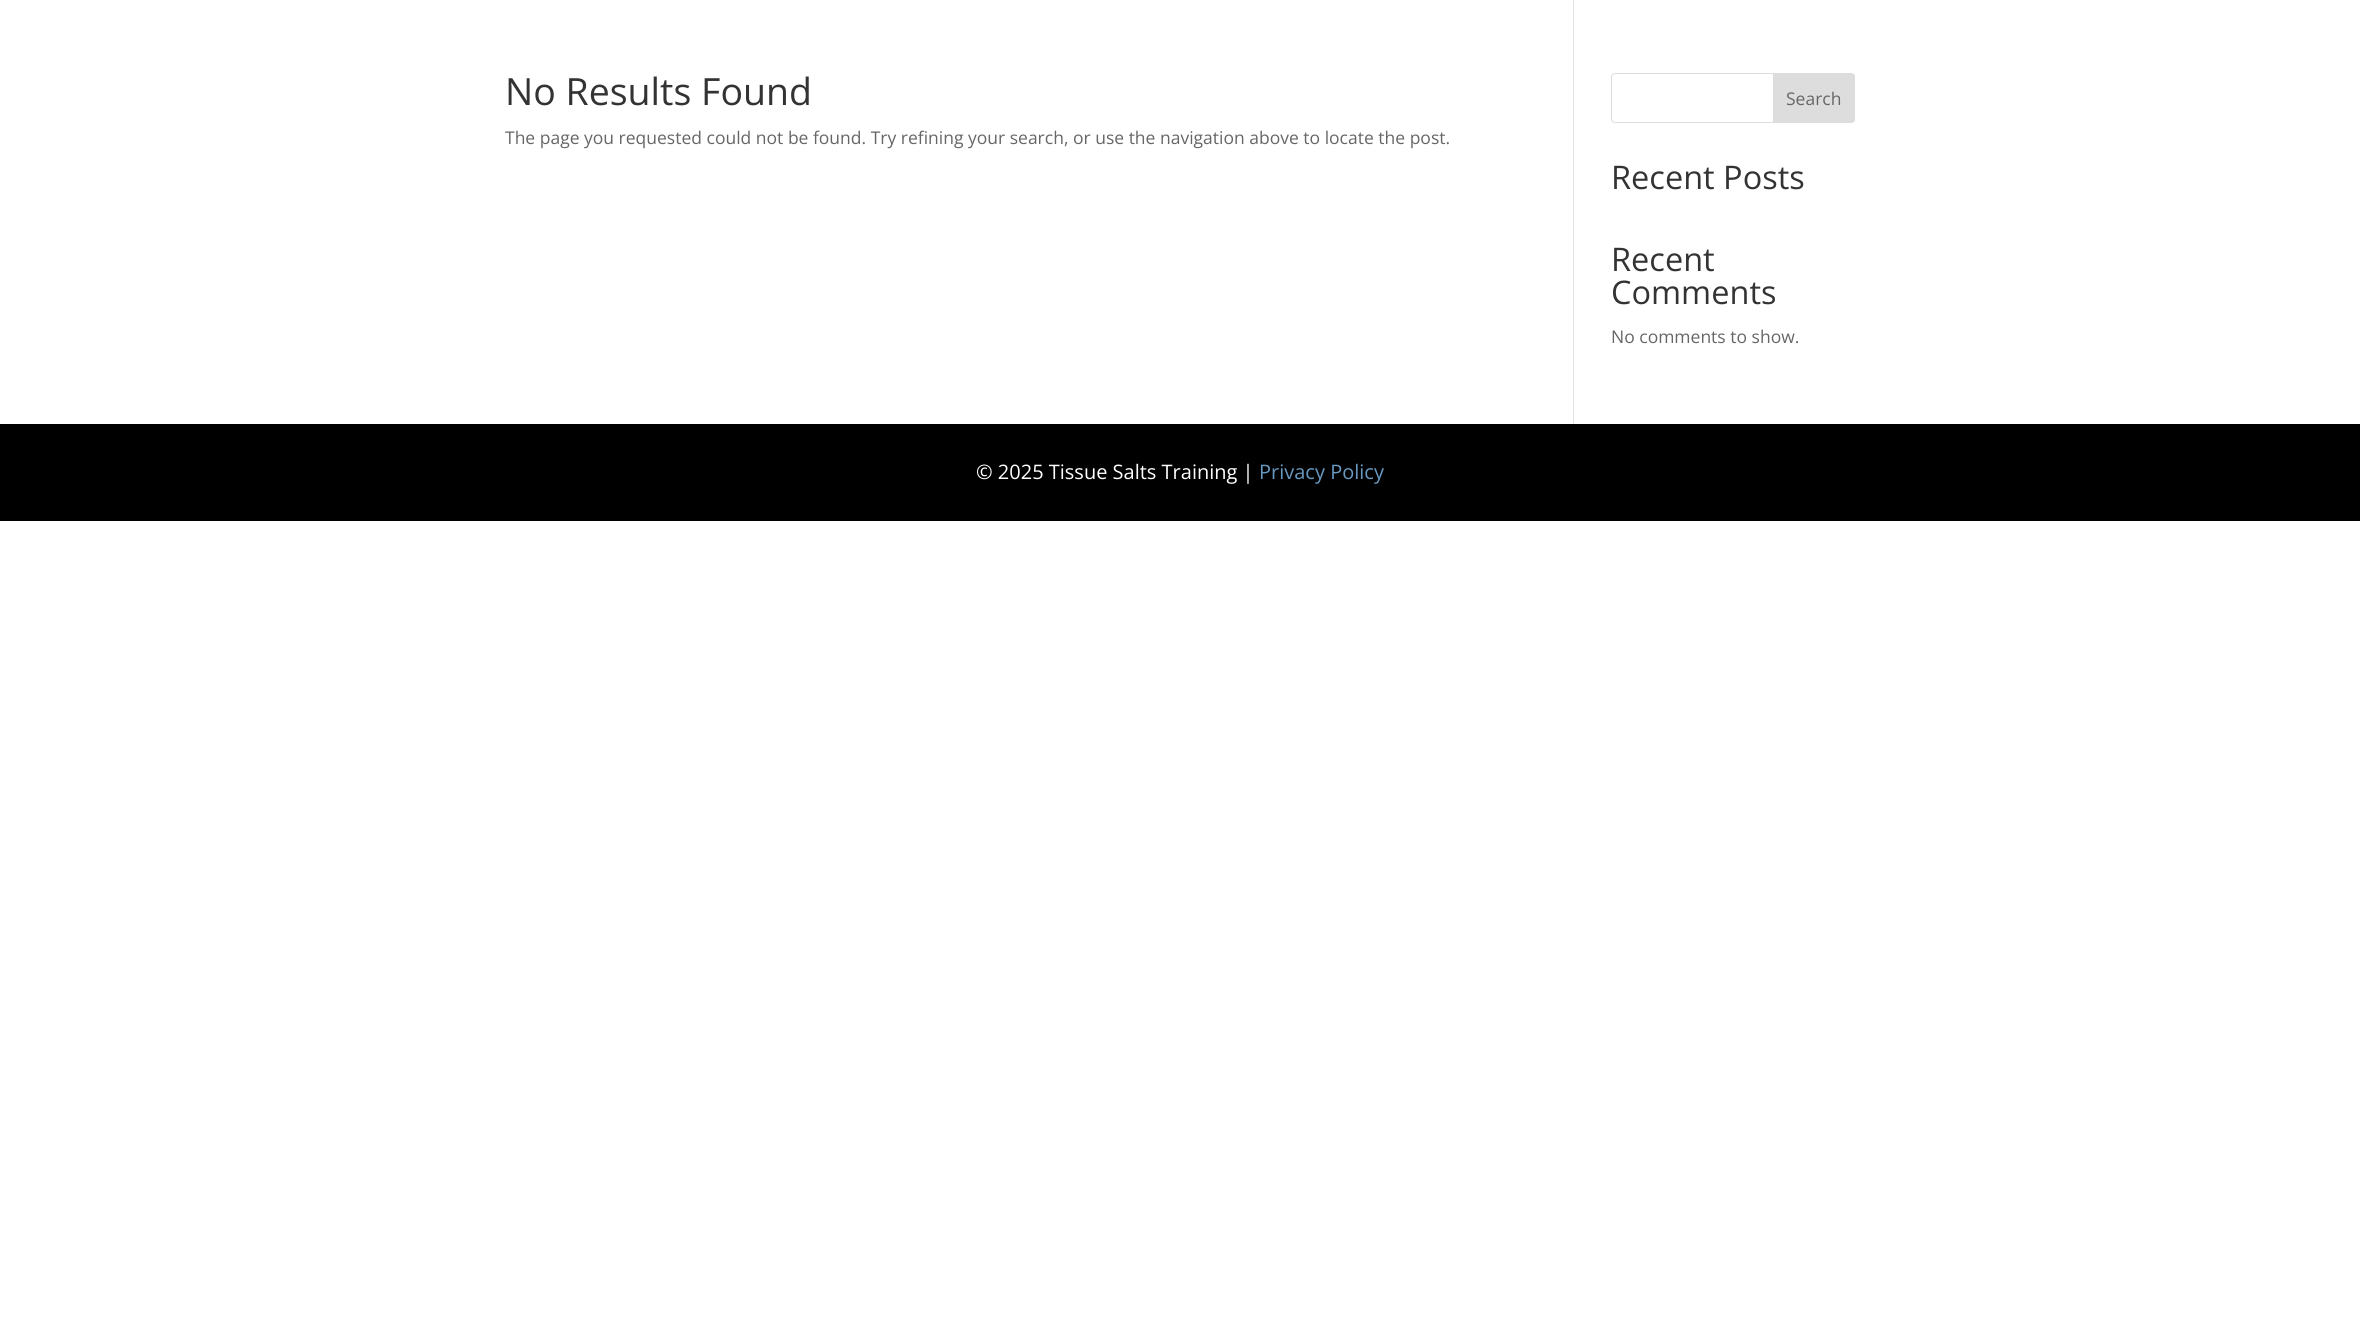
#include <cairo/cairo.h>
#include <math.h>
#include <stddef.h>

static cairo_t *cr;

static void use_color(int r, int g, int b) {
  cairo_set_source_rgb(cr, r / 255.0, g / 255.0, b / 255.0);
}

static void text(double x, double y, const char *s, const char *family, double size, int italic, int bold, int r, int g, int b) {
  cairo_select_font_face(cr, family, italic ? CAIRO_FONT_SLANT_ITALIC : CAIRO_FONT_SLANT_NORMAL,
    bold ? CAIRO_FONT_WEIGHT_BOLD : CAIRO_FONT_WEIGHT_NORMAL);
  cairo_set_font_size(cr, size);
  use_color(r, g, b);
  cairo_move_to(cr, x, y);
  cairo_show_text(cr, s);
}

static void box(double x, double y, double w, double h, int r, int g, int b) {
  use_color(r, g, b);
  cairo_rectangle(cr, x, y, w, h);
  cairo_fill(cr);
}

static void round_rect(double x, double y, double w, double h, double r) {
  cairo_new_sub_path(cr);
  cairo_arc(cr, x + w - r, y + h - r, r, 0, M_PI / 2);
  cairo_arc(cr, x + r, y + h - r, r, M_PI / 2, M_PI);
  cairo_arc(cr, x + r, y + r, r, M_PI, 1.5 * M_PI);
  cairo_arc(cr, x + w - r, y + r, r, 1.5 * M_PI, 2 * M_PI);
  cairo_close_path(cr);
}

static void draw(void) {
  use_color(255, 255, 255);
  cairo_paint(cr);
  box(1573, 0, 1, 424, 226, 226, 226);
  round_rect(1611.5, 73.5, 243, 49, 3.5);
  use_color(221, 221, 221);
  cairo_set_line_width(cr, 1);
  cairo_stroke(cr);
  cairo_new_path(cr);
  cairo_move_to(cr, 1773.5, 73.5);
  cairo_line_to(cr, 1851, 73.5);
  cairo_curve_to(cr, 1853, 73.5, 1854.5, 75, 1854.5, 77);
  cairo_line_to(cr, 1854.5, 119);
  cairo_curve_to(cr, 1854.5, 121, 1853, 122.5, 1851, 122.5);
  cairo_line_to(cr, 1773.5, 122.5);
  cairo_close_path(cr);
  cairo_fill_preserve(cr);
  cairo_stroke(cr);
  box(0, 424, 2360, 97, 0, 0, 0);
  text(505, 105, "No Results Found", "Open Sans", 37.5, 0, 0, 51, 51, 51);
  text(505, 144, "The page you requested could not be found. Try refining your search, or use the navigation above to locate the post.", "Open Sans", 17.5, 0, 0, 102, 102, 102);
  text(1786, 105, "Search", "Open Sans", 17.5, 0, 0, 102, 102, 102);
  text(1611, 189, "Recent Posts", "Open Sans", 32.5, 0, 0, 51, 51, 51);
  text(1611, 271, "Recent", "Open Sans", 32.5, 0, 0, 51, 51, 51);
  text(1611, 304, "Comments", "Open Sans", 32.5, 0, 0, 51, 51, 51);
  text(1611, 343, "No comments to show.", "Open Sans", 17.5, 0, 0, 102, 102, 102);
  text(976, 479, "© 2025 Tissue Salts Training |", "Open Sans", 20, 0, 0, 255, 255, 255);
  text(1259, 479, "Privacy Policy", "Open Sans", 20, 0, 0, 104, 153, 193);
}

int main(void) {
  cairo_surface_t *surface = cairo_image_surface_create(CAIRO_FORMAT_RGB24, 2360, 1335);
  cr = cairo_create(surface);
  cairo_font_options_t *options = cairo_font_options_create();
  cairo_font_options_set_hint_metrics(options, CAIRO_HINT_METRICS_OFF);
  cairo_font_options_set_hint_style(options, CAIRO_HINT_STYLE_NONE);
  cairo_set_font_options(cr, options);
  cairo_set_miter_limit(cr, 4);
  draw();
  cairo_surface_write_to_png(surface, "out.png");
  cairo_font_options_destroy(options);
  cairo_destroy(cr);
  cairo_surface_destroy(surface);
  return 0;
}
